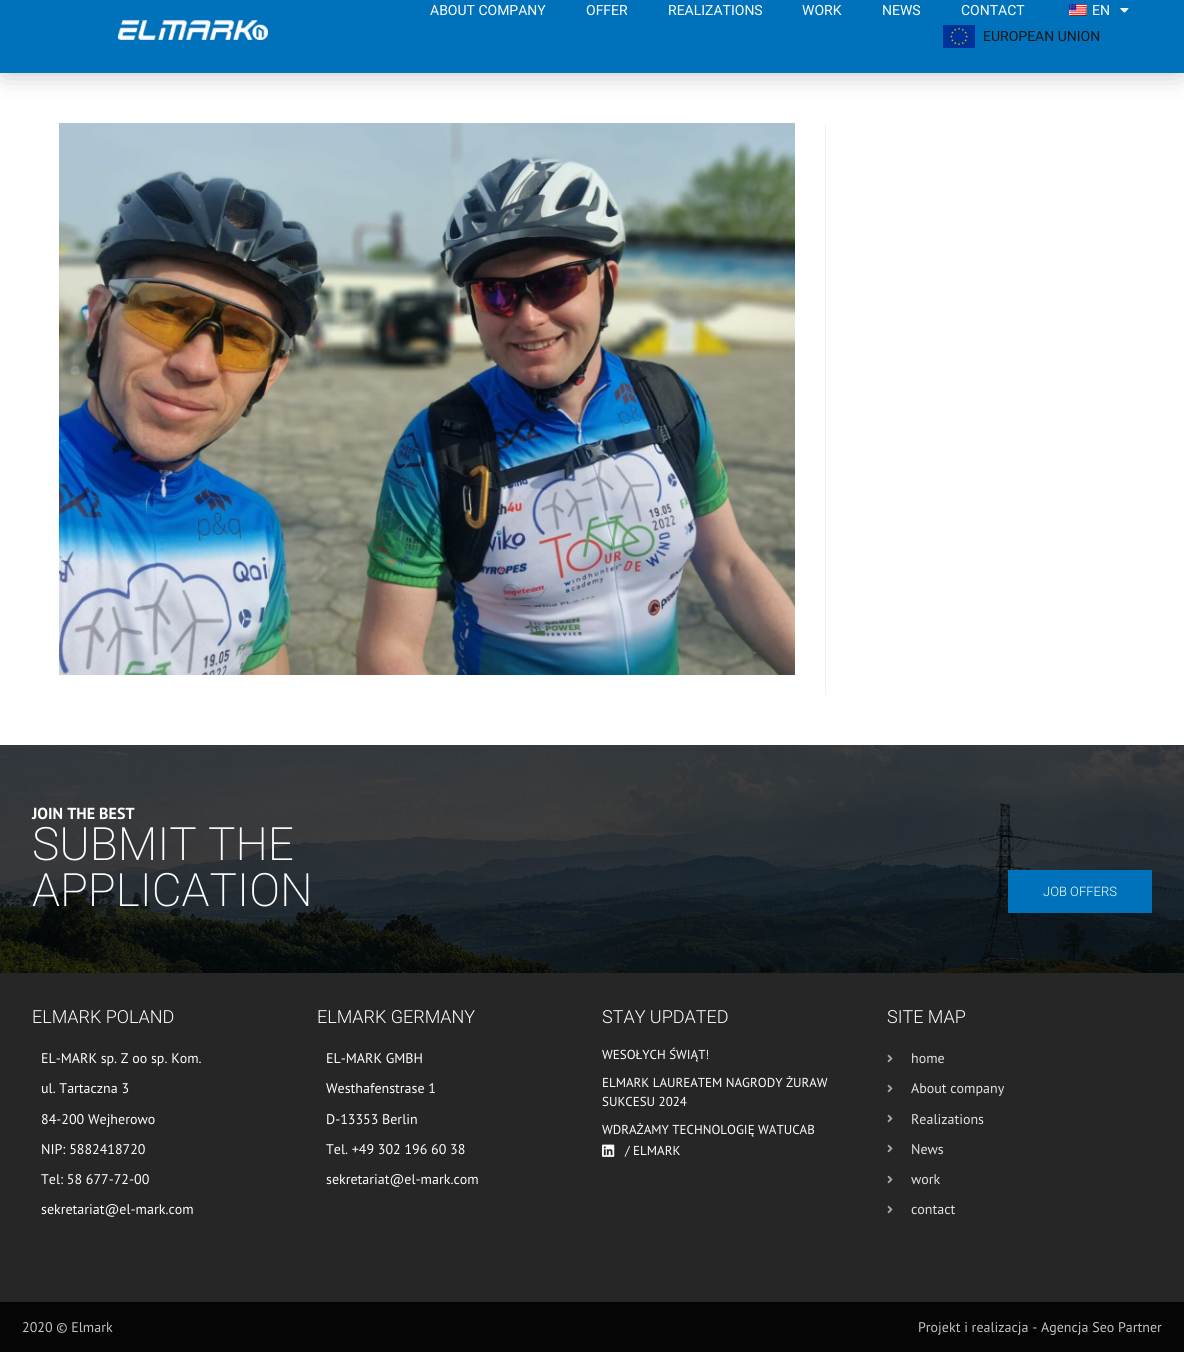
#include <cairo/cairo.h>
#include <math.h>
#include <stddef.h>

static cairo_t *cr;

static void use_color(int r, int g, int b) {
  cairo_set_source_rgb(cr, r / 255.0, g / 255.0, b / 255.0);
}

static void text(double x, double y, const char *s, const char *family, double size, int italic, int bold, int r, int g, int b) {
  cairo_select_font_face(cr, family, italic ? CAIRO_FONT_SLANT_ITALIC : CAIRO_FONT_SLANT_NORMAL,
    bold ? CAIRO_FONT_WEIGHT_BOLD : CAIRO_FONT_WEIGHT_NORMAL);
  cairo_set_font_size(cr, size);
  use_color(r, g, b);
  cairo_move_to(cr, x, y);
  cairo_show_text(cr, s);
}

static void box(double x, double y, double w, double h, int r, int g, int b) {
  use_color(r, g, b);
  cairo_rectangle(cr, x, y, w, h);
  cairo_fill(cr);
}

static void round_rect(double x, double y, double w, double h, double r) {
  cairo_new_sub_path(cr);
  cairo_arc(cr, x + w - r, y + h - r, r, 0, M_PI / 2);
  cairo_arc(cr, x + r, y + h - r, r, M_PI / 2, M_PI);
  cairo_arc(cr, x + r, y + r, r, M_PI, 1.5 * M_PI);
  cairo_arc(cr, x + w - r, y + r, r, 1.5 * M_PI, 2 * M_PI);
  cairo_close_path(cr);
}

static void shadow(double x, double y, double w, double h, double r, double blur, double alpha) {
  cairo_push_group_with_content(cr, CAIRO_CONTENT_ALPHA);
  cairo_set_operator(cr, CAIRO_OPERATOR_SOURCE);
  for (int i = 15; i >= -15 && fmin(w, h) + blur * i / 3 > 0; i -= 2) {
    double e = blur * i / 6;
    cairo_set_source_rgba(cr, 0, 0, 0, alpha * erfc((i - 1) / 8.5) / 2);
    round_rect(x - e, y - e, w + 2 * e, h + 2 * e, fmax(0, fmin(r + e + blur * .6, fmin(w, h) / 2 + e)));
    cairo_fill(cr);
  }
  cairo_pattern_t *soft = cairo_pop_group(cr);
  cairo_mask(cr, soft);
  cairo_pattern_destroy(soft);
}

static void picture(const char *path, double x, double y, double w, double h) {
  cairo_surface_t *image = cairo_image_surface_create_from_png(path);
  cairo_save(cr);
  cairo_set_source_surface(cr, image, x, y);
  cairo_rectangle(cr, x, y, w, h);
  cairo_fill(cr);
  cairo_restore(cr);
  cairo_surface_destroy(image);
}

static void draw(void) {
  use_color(255, 255, 255);
  cairo_paint(cr);
  use_color(0, 0, 0);
  shadow(5, 5, 1174, 63, 0, 15, 0.35);
  box(0, 0, 1184, 73, 0, 114, 188);
  picture("img_01.png", 118, 20, 150, 20);
  picture("img_02.png", 1069, 4, 18, 12);
  picture("img_03.png", 1120, 8, 9, 5);
  picture("img_04.png", 943, 25, 32, 23);
  box(825, 123, 1, 572, 241, 241, 241);
  picture("img_05.png", 59, 123, 736, 552);
  picture("img_06.png", 0, 745, 1184, 228);
  box(1008, 870, 144, 43, 0, 114, 188);
  box(0, 973, 1184, 329, 38, 38, 38);
  picture("img_07.png", 602, 1144, 13, 13);
  picture("img_08.png", 887, 1054, 6, 9);
  picture("img_08.png", 887, 1084, 6, 9);
  picture("img_08.png", 887, 1114, 6, 9);
  picture("img_08.png", 887, 1144, 6, 9);
  picture("img_08.png", 887, 1175, 6, 9);
  picture("img_08.png", 887, 1205, 6, 9);
  box(0, 1302, 1184, 50, 5, 5, 5);
  text(430, 15, "ABOUT COMPANY", "Roboto", 14, 0, 0, 255, 255, 255);
  text(586, 15, "OFFER", "Roboto", 14, 0, 0, 255, 255, 255);
  text(668, 15, "REALIZATIONS", "Roboto", 14, 0, 0, 255, 255, 255);
  text(802, 15, "WORK", "Roboto", 14, 0, 0, 255, 255, 255);
  text(882, 15, "NEWS", "Roboto", 14, 0, 0, 255, 255, 255);
  text(961, 15, "CONTACT", "Roboto", 14, 0, 0, 255, 255, 255);
  text(1092, 15, "EN", "Roboto", 14, 0, 0, 255, 255, 255);
  text(983, 41, "EUROPEAN UNION", "Roboto", 14, 0, 0, 22, 22, 22);
  text(32, 819, "JOIN THE BEST", "PT Sans", 16, 0, 1, 255, 255, 255);
  text(32, 860, "SUBMIT THE", "Roboto ExtraLight", 46, 0, 0, 255, 255, 255);
  text(32, 906, "APPLICATION", "Roboto ExtraLight", 46, 0, 0, 255, 255, 255);
  text(1043, 896, "JOB OFFERS", "Roboto Light", 13, 0, 0, 255, 255, 255);
  text(32, 1023, "ELMARK POLAND", "Roboto Light", 18, 0, 0, 255, 255, 255);
  text(41, 1063, "EL-MARK sp. Z oo sp. Kom.", "PT Sans", 14, 0, 0, 255, 255, 255);
  text(41, 1093, "ul. Tartaczna 3", "PT Sans", 14, 0, 0, 255, 255, 255);
  text(41, 1124, "84-200 Wejherowo", "PT Sans", 14, 0, 0, 255, 255, 255);
  text(41, 1154, "NIP: 5882418720", "PT Sans", 14, 0, 0, 255, 255, 255);
  text(41, 1184, "Tel: 58 677-72-00", "PT Sans", 14, 0, 0, 255, 255, 255);
  text(41, 1214, "sekretariat@el-mark.com", "PT Sans", 14, 0, 0, 255, 255, 255);
  text(317, 1023, "ELMARK GERMANY", "Roboto Light", 18, 0, 0, 255, 255, 255);
  text(326, 1063, "EL-MARK GMBH", "PT Sans", 14, 0, 0, 255, 255, 255);
  text(326, 1093, "Westhafenstrase 1", "PT Sans", 14, 0, 0, 255, 255, 255);
  text(326, 1124, "D-13353 Berlin", "PT Sans", 14, 0, 0, 255, 255, 255);
  text(326, 1154, "Tel. +49 302 196 60 38", "PT Sans", 14, 0, 0, 255, 255, 255);
  text(326, 1184, "sekretariat@el-mark.com", "PT Sans", 14, 0, 0, 255, 255, 255);
  text(602, 1023, "STAY UPDATED", "Roboto Light", 18, 0, 0, 255, 255, 255);
  text(602, 1059, "WESOŁYCH ŚWIĄT!", "PT Sans", 13, 0, 0, 255, 255, 255);
  text(602, 1087, "ELMARK LAUREATEM NAGRODY ŻURAW", "PT Sans", 13, 0, 0, 255, 255, 255);
  text(602, 1106, "SUKCESU 2024", "PT Sans", 13, 0, 0, 255, 255, 255);
  text(602, 1134, "WDRAŻAMY TECHNOLOGIĘ WATUCAB", "PT Sans", 13, 0, 0, 255, 255, 255);
  text(625, 1155, "/ ELMARK", "PT Sans", 13, 0, 0, 255, 255, 255);
  text(887, 1023, "SITE MAP", "Roboto Light", 18, 0, 0, 255, 255, 255);
  text(911, 1063, "home", "PT Sans", 14, 0, 0, 227, 227, 227);
  text(911, 1093, "About company", "PT Sans", 14, 0, 0, 227, 227, 227);
  text(911, 1124, "Realizations", "PT Sans", 14, 0, 0, 227, 227, 227);
  text(911, 1154, "News", "PT Sans", 14, 0, 0, 227, 227, 227);
  text(911, 1184, "work", "PT Sans", 14, 0, 0, 227, 227, 227);
  text(911, 1214, "contact", "PT Sans", 14, 0, 0, 227, 227, 227);
  text(22, 1332, "2020 © Elmark", "PT Sans", 14, 0, 0, 195, 195, 195);
  text(918, 1332, "Projekt i realizacja - Agencja Seo Partner", "PT Sans", 14, 0, 0, 195, 195, 195);
}

int main(void) {
  cairo_surface_t *surface = cairo_image_surface_create(CAIRO_FORMAT_RGB24, 1184, 1366);
  cr = cairo_create(surface);
  cairo_font_options_t *options = cairo_font_options_create();
  cairo_font_options_set_hint_metrics(options, CAIRO_HINT_METRICS_OFF);
  cairo_font_options_set_hint_style(options, CAIRO_HINT_STYLE_NONE);
  cairo_set_font_options(cr, options);
  cairo_set_miter_limit(cr, 4);
  draw();
  cairo_surface_write_to_png(surface, "out.png");
  cairo_font_options_destroy(options);
  cairo_destroy(cr);
  cairo_surface_destroy(surface);
  return 0;
}
